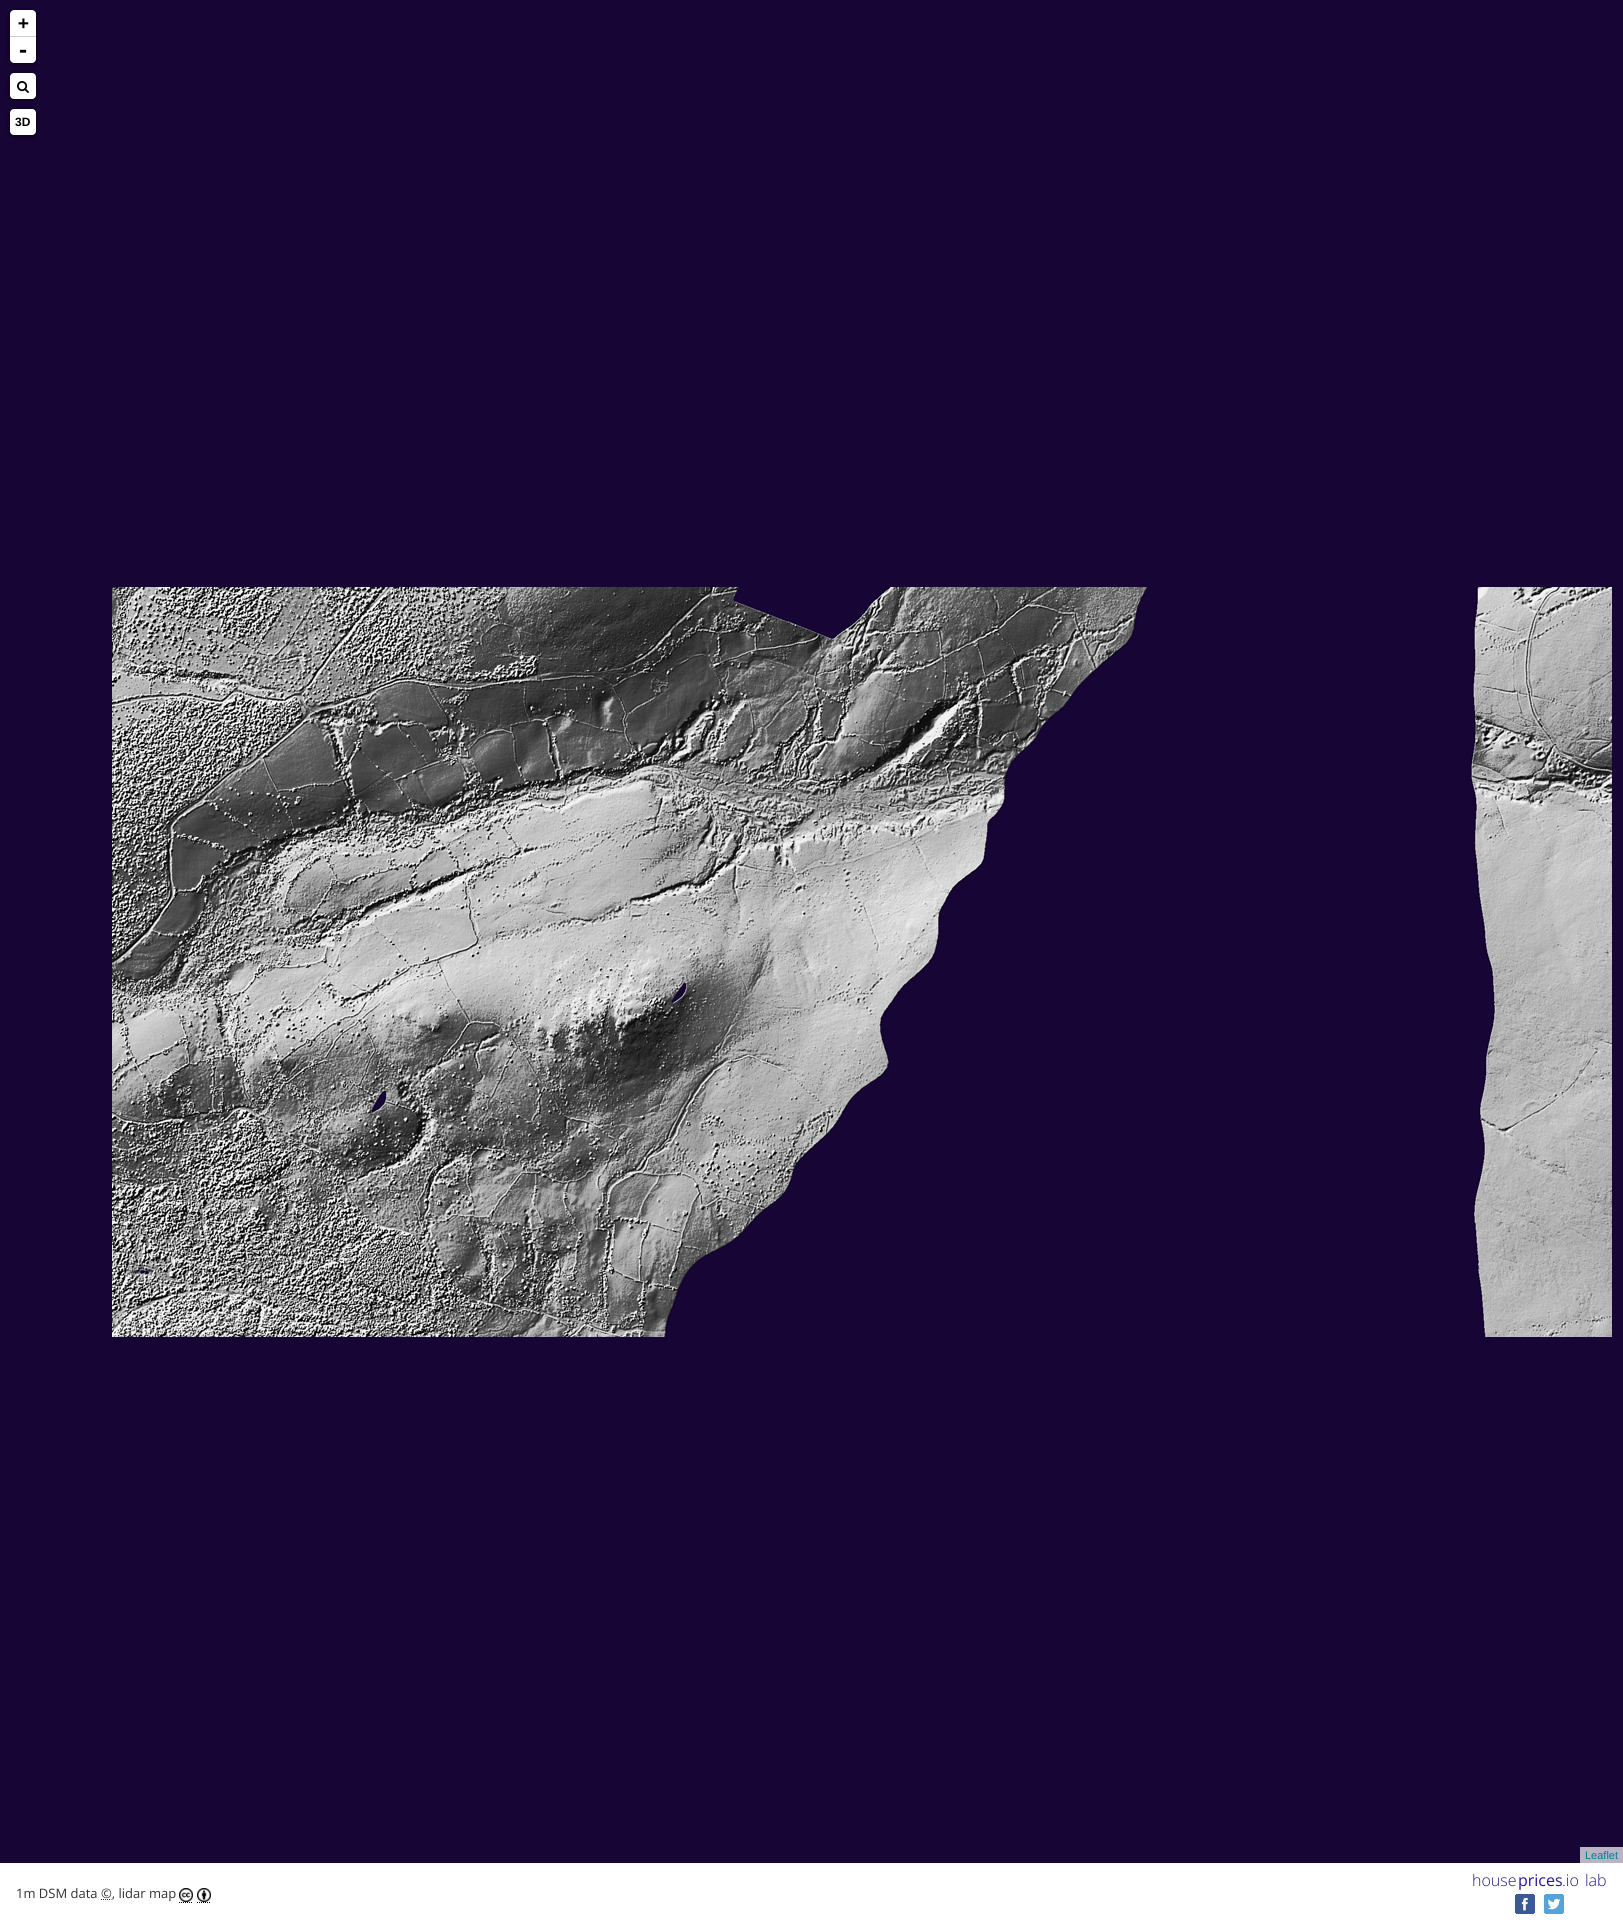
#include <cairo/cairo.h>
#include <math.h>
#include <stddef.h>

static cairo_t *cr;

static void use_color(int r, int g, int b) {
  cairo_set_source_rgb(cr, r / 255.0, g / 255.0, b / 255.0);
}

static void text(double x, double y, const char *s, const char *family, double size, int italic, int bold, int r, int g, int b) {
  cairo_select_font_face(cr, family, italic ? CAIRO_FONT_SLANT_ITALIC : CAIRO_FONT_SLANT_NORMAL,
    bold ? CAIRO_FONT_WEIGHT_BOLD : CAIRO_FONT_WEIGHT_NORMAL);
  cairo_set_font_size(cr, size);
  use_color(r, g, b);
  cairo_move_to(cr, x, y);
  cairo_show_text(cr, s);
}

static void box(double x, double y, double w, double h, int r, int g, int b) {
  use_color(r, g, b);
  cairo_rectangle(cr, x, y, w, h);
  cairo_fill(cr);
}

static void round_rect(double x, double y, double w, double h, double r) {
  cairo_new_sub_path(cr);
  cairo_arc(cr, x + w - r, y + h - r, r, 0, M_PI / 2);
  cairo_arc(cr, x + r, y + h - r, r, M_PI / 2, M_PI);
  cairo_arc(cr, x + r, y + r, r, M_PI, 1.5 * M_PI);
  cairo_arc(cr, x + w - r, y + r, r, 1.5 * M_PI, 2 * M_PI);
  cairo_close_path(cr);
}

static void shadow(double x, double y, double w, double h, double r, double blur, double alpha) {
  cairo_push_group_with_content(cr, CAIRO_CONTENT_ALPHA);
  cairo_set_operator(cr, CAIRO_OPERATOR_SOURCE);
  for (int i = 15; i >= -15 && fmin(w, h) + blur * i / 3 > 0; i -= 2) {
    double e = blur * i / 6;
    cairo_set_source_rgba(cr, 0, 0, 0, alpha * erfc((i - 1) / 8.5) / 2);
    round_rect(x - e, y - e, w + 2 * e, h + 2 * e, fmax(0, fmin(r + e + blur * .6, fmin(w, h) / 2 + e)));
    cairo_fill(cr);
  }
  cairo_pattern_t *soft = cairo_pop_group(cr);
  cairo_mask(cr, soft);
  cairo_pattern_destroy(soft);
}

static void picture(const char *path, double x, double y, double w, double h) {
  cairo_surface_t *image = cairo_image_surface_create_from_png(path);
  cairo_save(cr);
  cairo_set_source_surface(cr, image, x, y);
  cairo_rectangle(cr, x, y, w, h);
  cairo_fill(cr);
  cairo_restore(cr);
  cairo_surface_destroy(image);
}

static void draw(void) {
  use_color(255, 255, 255);
  cairo_paint(cr);
  box(0, 0, 1623, 1863, 23, 5, 53);
  use_color(0, 0, 0);
  shadow(10, 11, 26, 53, 4, 2.5, 0.65);
  use_color(255, 255, 255);
  cairo_new_path(cr);
  cairo_move_to(cr, 14, 10);
  cairo_line_to(cr, 32, 10);
  cairo_curve_to(cr, 34, 10, 36, 12, 36, 14);
  cairo_line_to(cr, 36, 37);
  cairo_line_to(cr, 10, 37);
  cairo_line_to(cr, 10, 14);
  cairo_curve_to(cr, 10, 12, 12, 10, 14, 10);
  cairo_close_path(cr);
  cairo_fill(cr);
  box(10, 36, 26, 1, 204, 204, 204);
  use_color(255, 255, 255);
  cairo_new_path(cr);
  cairo_move_to(cr, 10, 37);
  cairo_line_to(cr, 36, 37);
  cairo_line_to(cr, 36, 59);
  cairo_curve_to(cr, 36, 61, 34, 63, 32, 63);
  cairo_line_to(cr, 14, 63);
  cairo_curve_to(cr, 12, 63, 10, 61, 10, 59);
  cairo_close_path(cr);
  cairo_fill(cr);
  use_color(0, 0, 0);
  shadow(10, 74, 26, 26, 4, 2.5, 0.65);
  use_color(255, 255, 255);
  round_rect(10, 73, 26, 26, 4);
  cairo_fill(cr);
  picture("img_01.png", 17, 81, 12, 12);
  use_color(0, 0, 0);
  shadow(10, 110, 26, 26, 4, 2.5, 0.65);
  use_color(255, 255, 255);
  round_rect(10, 109, 26, 26, 4);
  cairo_fill(cr);
  box(1580, 1847, 43, 16, 185, 180, 194);
  picture("img_02.png", 112, 587, 250, 250);
  picture("img_03.png", 362, 587, 250, 250);
  picture("img_04.png", 612, 587, 250, 250);
  picture("img_05.png", 862, 587, 250, 250);
  picture("img_06.png", 1112, 587, 36, 69);
  picture("img_07.png", 1470, 587, 142, 250);
  picture("img_08.png", 112, 837, 250, 250);
  picture("img_09.png", 362, 837, 250, 250);
  picture("img_10.png", 612, 837, 250, 250);
  picture("img_11.png", 862, 837, 126, 250);
  picture("img_12.png", 1474, 837, 138, 250);
  picture("img_13.png", 112, 1087, 250, 250);
  picture("img_14.png", 362, 1087, 250, 250);
  picture("img_15.png", 612, 1087, 250, 250);
  picture("img_16.png", 862, 1087, 2, 2);
  picture("img_17.png", 1473, 1087, 139, 250);
  picture("img_18.png", 1515, 1894, 20, 20);
  picture("img_19.png", 1544, 1894, 20, 20);
  cairo_new_path(cr);
  cairo_move_to(cr, 101, 1899.5);
  cairo_line_to(cr, 111.5, 1899.5);
  use_color(51, 51, 51);
  cairo_set_line_width(cr, 1);
  cairo_set_dash(cr, (double[]){1, 1}, 2, 0);
  cairo_stroke(cr);
  cairo_new_path(cr);
  cairo_move_to(cr, 179, 1902.5);
  cairo_line_to(cr, 193, 1902.5);
  use_color(0, 0, 0);
  cairo_stroke(cr);
  cairo_new_path(cr);
  cairo_move_to(cr, 197, 1902.5);
  cairo_line_to(cr, 211, 1902.5);
  cairo_stroke(cr);
  picture("img_20.png", 179, 1888, 14, 14);
  picture("img_21.png", 197, 1888, 14, 14);
  text(18, 29, "+", "DejaVu Sans Mono", 18, 0, 1, 0, 0, 0);
  text(17, 57, "-", "DejaVu Sans Mono", 20, 0, 1, 0, 0, 0);
  text(15, 126, "3D", "Liberation Sans", 12, 0, 1, 0, 0, 0);
  text(1585, 1859, "Leaflet", "Liberation Sans", 11, 0, 0, 0, 120, 168);
  text(1472, 1886, "house", "Open Sans Light", 16, 0, 0, 34, 25, 142);
  text(1518, 1886, "prices", "Open Sans", 16, 0, 0, 34, 25, 142);
  text(1562, 1886, ".io", "Open Sans Light", 16, 0, 0, 34, 25, 142);
  text(1585, 1886, "lab", "Open Sans Light", 16, 0, 0, 34, 25, 142);
  text(16, 1898, "1m DSM data ©, lidar map", "Open Sans", 13, 0, 0, 51, 51, 51);
}

int main(void) {
  cairo_surface_t *surface = cairo_image_surface_create(CAIRO_FORMAT_RGB24, 1623, 1923);
  cr = cairo_create(surface);
  cairo_font_options_t *options = cairo_font_options_create();
  cairo_font_options_set_hint_metrics(options, CAIRO_HINT_METRICS_OFF);
  cairo_font_options_set_hint_style(options, CAIRO_HINT_STYLE_NONE);
  cairo_set_font_options(cr, options);
  cairo_set_miter_limit(cr, 4);
  draw();
  cairo_surface_write_to_png(surface, "out.png");
  cairo_font_options_destroy(options);
  cairo_destroy(cr);
  cairo_surface_destroy(surface);
  return 0;
}
